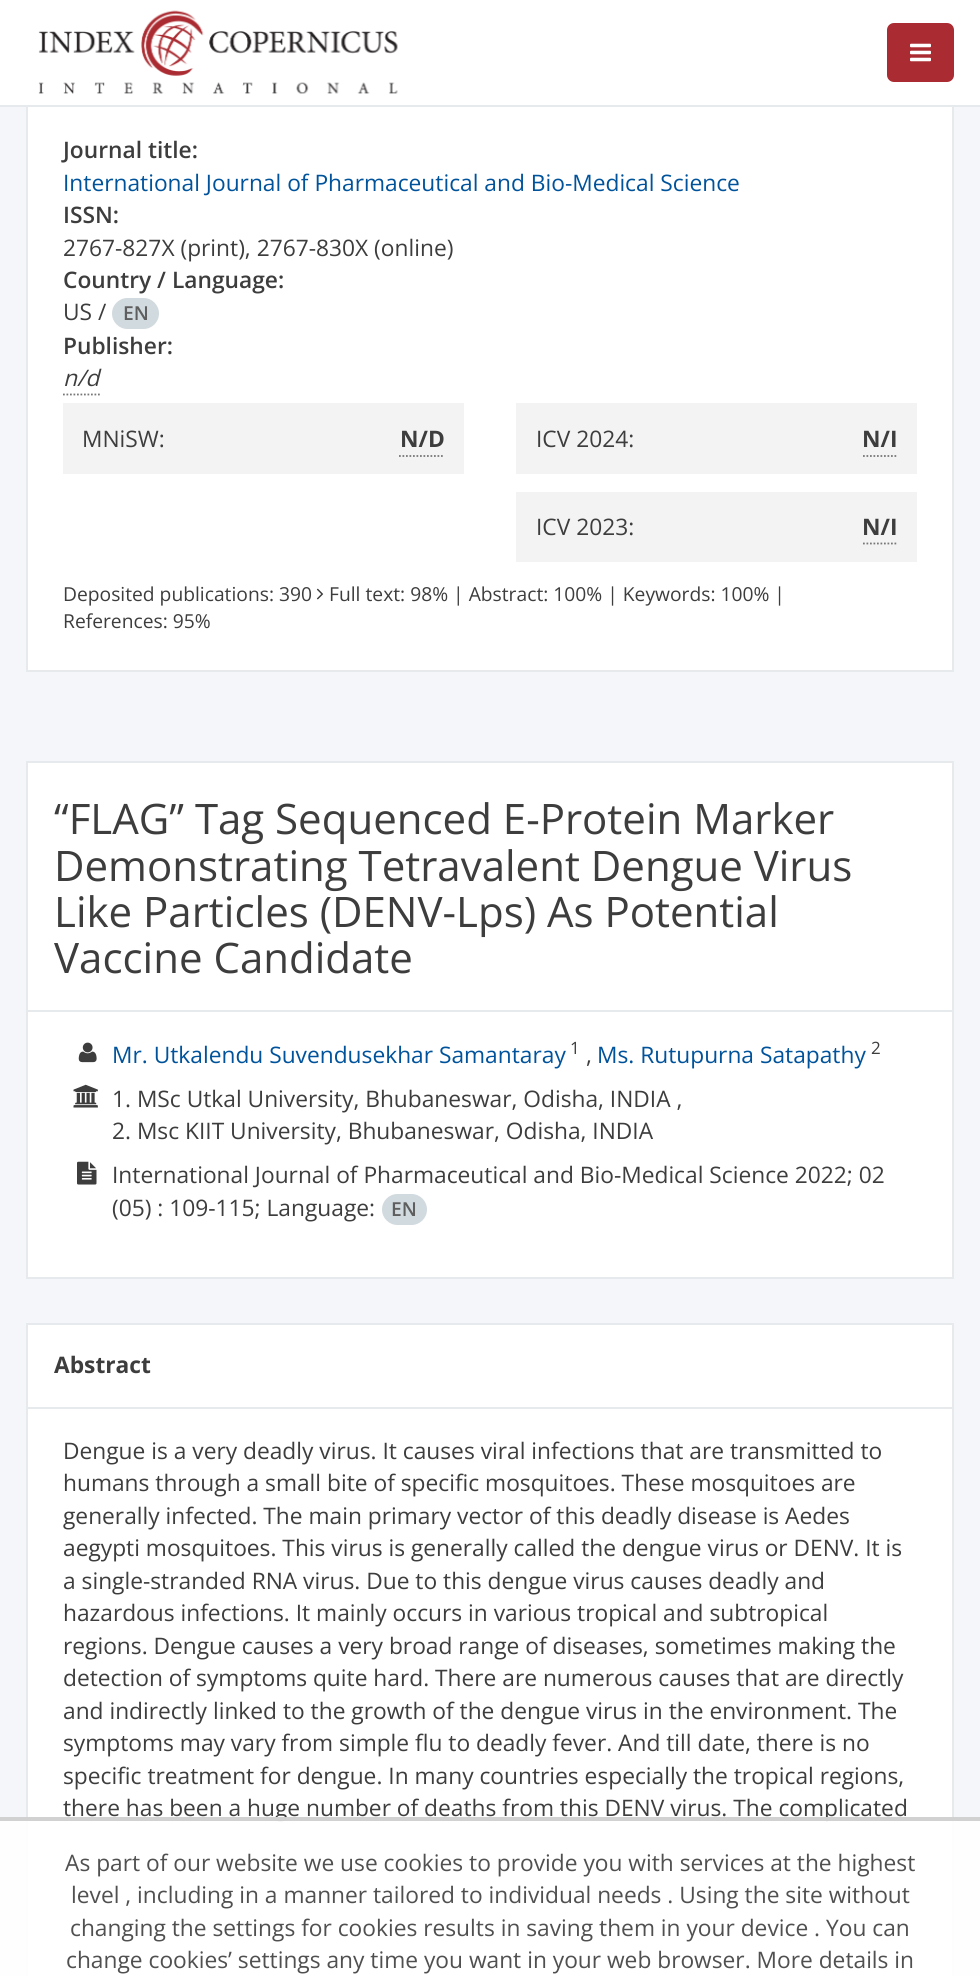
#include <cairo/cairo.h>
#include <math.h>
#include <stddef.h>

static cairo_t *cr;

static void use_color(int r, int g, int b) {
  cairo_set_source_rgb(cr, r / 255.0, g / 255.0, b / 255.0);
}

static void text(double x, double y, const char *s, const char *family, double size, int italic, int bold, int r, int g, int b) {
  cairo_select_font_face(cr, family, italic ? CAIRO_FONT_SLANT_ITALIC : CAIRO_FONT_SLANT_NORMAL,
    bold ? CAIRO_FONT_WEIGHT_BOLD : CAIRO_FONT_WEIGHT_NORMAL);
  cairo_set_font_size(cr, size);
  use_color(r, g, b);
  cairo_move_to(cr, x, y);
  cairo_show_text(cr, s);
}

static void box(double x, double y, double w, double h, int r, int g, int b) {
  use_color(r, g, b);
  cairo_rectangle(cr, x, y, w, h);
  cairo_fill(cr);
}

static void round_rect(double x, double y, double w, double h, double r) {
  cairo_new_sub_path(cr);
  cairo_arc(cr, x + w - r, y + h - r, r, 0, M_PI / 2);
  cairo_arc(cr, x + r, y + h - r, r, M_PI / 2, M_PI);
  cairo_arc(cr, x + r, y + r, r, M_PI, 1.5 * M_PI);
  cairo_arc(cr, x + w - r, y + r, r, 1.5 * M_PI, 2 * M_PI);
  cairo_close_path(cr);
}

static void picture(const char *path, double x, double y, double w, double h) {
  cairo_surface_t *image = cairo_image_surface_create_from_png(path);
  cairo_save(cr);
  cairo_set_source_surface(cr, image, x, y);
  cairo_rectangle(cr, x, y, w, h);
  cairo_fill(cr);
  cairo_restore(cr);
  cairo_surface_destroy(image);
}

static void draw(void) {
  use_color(244, 246, 250);
  cairo_paint(cr);
  box(28, 107, 924, 563, 255, 255, 255);
  cairo_rectangle(cr, 27, 41, 926, 630);
  use_color(231, 234, 236);
  cairo_stroke(cr);
  box(0, 0, 980, 105, 255, 255, 255);
  box(0, 105, 980, 2, 231, 234, 236);
  picture("img_01.png", 38, 10, 360, 84);
  use_color(170, 43, 49);
  round_rect(887, 23, 67, 59, 7);
  cairo_fill(cr);
  picture("img_02.png", 910, 43, 21, 19);
  use_color(209, 218, 222);
  round_rect(112, 298, 47, 31, 15.5);
  cairo_fill(cr);
  cairo_new_path(cr);
  cairo_move_to(cr, 63, 394.5);
  cairo_line_to(cr, 100, 394.5);
  use_color(119, 119, 119);
  cairo_set_line_width(cr, 1.8);
  cairo_set_dash(cr, (double[]){1.75, 1.75}, 2, 0);
  cairo_stroke(cr);
  box(63, 403, 401, 71, 243, 243, 244);
  cairo_new_path(cr);
  cairo_move_to(cr, 399, 456);
  cairo_line_to(cr, 444.5, 456);
  use_color(119, 119, 119);
  cairo_stroke(cr);
  box(516, 403, 401, 71, 243, 243, 244);
  cairo_new_path(cr);
  cairo_move_to(cr, 863, 456);
  cairo_line_to(cr, 898, 456);
  use_color(119, 119, 119);
  cairo_stroke(cr);
  box(516, 492, 401, 70, 243, 243, 244);
  cairo_new_path(cr);
  cairo_move_to(cr, 863, 543.5);
  cairo_line_to(cr, 898, 543.5);
  use_color(119, 119, 119);
  cairo_stroke(cr);
  picture("img_03.png", 316, 588, 8, 12);
  box(28, 763, 924, 247, 255, 255, 255);
  box(26, 761, 928, 2, 231, 234, 236);
  box(952, 761, 2, 249, 231, 234, 236);
  box(26, 761, 2, 249, 231, 234, 236);
  use_color(255, 255, 255);
  cairo_rectangle(cr, 27, 1011, 926, 267);
  cairo_fill_preserve(cr);
  use_color(231, 234, 236);
  cairo_set_line_width(cr, 2);
  cairo_set_dash(cr, NULL, 0, 0);
  cairo_stroke(cr);
  picture("img_04.png", 78, 1042, 19, 21);
  picture("img_05.png", 73, 1084, 25, 24);
  picture("img_06.png", 77, 1161, 20, 24);
  use_color(209, 218, 222);
  round_rect(382, 1194, 45, 31, 15.5);
  cairo_fill(cr);
  box(28, 1325, 924, 82, 255, 255, 255);
  box(26, 1323, 928, 2, 231, 234, 236);
  box(952, 1323, 2, 84, 231, 234, 236);
  box(26, 1323, 2, 84, 231, 234, 236);
  use_color(255, 255, 255);
  cairo_rectangle(cr, 27, 1408, 926, 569);
  cairo_fill_preserve(cr);
  use_color(231, 234, 236);
  cairo_stroke(cr);
  text(63, 158, "Journal title:", "Open Sans SemiBold", 22.75, 0, 0, 61, 61, 61);
  text(63, 191, "International Journal of Pharmaceutical and Bio-Medical Science", "Open Sans", 22.75, 0, 0, 0, 83, 155);
  text(63, 223, "ISSN:", "Open Sans SemiBold", 22.75, 0, 0, 61, 61, 61);
  text(63, 256, "2767-827X (print), 2767-830X (online)", "Open Sans", 22.75, 0, 0, 61, 61, 61);
  text(63, 288, "Country / Language:", "Open Sans SemiBold", 22.75, 0, 0, 61, 61, 61);
  text(63, 320, "US /", "Open Sans", 22.75, 0, 0, 61, 61, 61);
  text(123, 320, "EN", "Open Sans SemiBold", 19.25, 0, 0, 94, 94, 94);
  text(63, 354, "Publisher:", "Open Sans SemiBold", 22.75, 0, 0, 61, 61, 61);
  text(63, 386, "n/d", "Open Sans", 22.75, 1, 0, 61, 61, 61);
  text(82, 447, "MNiSW:", "Open Sans", 22.75, 0, 0, 61, 61, 61);
  text(400, 447, "N/D", "Open Sans", 22.75, 0, 1, 61, 61, 61);
  text(536, 447, "ICV 2024:", "Open Sans", 22.75, 0, 0, 61, 61, 61);
  text(862, 447, "N/I", "Open Sans", 22.75, 0, 1, 61, 61, 61);
  text(536, 535, "ICV 2023:", "Open Sans", 22.75, 0, 0, 61, 61, 61);
  text(862, 535, "N/I", "Open Sans", 22.75, 0, 1, 61, 61, 61);
  text(63, 601, "Deposited publications: 390", "Open Sans", 19.25, 0, 0, 61, 61, 61);
  text(329, 601, "Full text: 98% | Abstract: 100% | Keywords: 100% |", "Open Sans", 19.25, 0, 0, 61, 61, 61);
  text(63, 628, "References: 95%", "Open Sans", 19.25, 0, 0, 61, 61, 61);
  text(54, 834, "“FLAG” Tag Sequenced E-Protein Marker", "Open Sans", 42, 0, 0, 61, 61, 61);
  text(54, 881, "Demonstrating Tetravalent Dengue Virus", "Open Sans", 42, 0, 0, 61, 61, 61);
  text(54, 927, "Like Particles (DENV-Lps) As Potential", "Open Sans", 42, 0, 0, 61, 61, 61);
  text(54, 973, "Vaccine Candidate", "Open Sans", 42, 0, 0, 61, 61, 61);
  text(112, 1063, "Mr. Utkalendu Suvendusekhar Samantaray", "Open Sans", 22.75, 0, 0, 0, 83, 155);
  text(570, 1054, "1", "Open Sans", 17, 0, 0, 61, 61, 61);
  text(586, 1063, ",", "Open Sans", 22.75, 0, 0, 61, 61, 61);
  text(597, 1063, "Ms. Rutupurna Satapathy", "Open Sans", 22.75, 0, 0, 0, 83, 155);
  text(871, 1054, "2", "Open Sans", 17, 0, 0, 61, 61, 61);
  text(112, 1107, "1. MSc Utkal University, Bhubaneswar, Odisha, INDIA ,", "Open Sans", 22.75, 0, 0, 61, 61, 61);
  text(112, 1139, "2. Msc KIIT University, Bhubaneswar, Odisha, INDIA", "Open Sans", 22.75, 0, 0, 61, 61, 61);
  text(112, 1183, "International Journal of Pharmaceutical and Bio-Medical Science 2022; 02", "Open Sans", 22.75, 0, 0, 61, 61, 61);
  text(112, 1216, "(05) : 109-115; Language:", "Open Sans", 22.75, 0, 0, 61, 61, 61);
  text(391, 1216, "EN", "Open Sans SemiBold", 19.25, 0, 0, 94, 94, 94);
  text(54, 1373, "Abstract", "Open Sans", 22.75, 0, 1, 61, 61, 61);
  text(63, 1459, "Dengue is a very deadly virus. It causes viral infections that are transmitted to", "Open Sans", 22.75, 0, 0, 61, 61, 61);
  text(63, 1491, "humans through a small bite of specific mosquitoes. These mosquitoes are", "Open Sans", 22.75, 0, 0, 61, 61, 61);
  text(63, 1524, "generally infected. The main primary vector of this deadly disease is Aedes", "Open Sans", 22.75, 0, 0, 61, 61, 61);
  text(63, 1556, "aegypti mosquitoes. This virus is generally called the dengue virus or DENV. It is", "Open Sans", 22.75, 0, 0, 61, 61, 61);
  text(63, 1589, "a single-stranded RNA virus. Due to this dengue virus causes deadly and", "Open Sans", 22.75, 0, 0, 61, 61, 61);
  text(63, 1621, "hazardous infections. It mainly occurs in various tropical and subtropical", "Open Sans", 22.75, 0, 0, 61, 61, 61);
  text(63, 1654, "regions. Dengue causes a very broad range of diseases, sometimes making the", "Open Sans", 22.75, 0, 0, 61, 61, 61);
  text(63, 1686, "detection of symptoms quite hard. There are numerous causes that are directly", "Open Sans", 22.75, 0, 0, 61, 61, 61);
  text(63, 1719, "and indirectly linked to the growth of the dengue virus in the environment. The", "Open Sans", 22.75, 0, 0, 61, 61, 61);
  text(63, 1751, "symptoms may vary from simple flu to deadly fever. And till date, there is no", "Open Sans", 22.75, 0, 0, 61, 61, 61);
  text(63, 1784, "specific treatment for dengue. In many countries especially the tropical regions,", "Open Sans", 22.75, 0, 0, 61, 61, 61);
  text(63, 1816, "there has been a huge number of deaths from this DENV virus. The complicated", "Open Sans", 22.75, 0, 0, 61, 61, 61);
  cairo_set_source_rgba(cr, 1, 1, 1, 0.9);
  cairo_rectangle(cr, 0, 1817, 980, 159);
  cairo_fill(cr);
  cairo_set_source_rgba(cr, 0.8, 0.8, 0.8, 0.9);
  cairo_rectangle(cr, 0, 1817, 980, 4);
  cairo_fill(cr);
  text(65, 1871, "As part of our website we use cookies to provide you with services at the highest", "Open Sans", 22.75, 0, 0, 80, 80, 80);
  text(71, 1903, "level , including in a manner tailored to individual needs . Using the site without", "Open Sans", 22.75, 0, 0, 80, 80, 80);
  text(70, 1936, "changing the settings for cookies results in saving them in your device . You can", "Open Sans", 22.75, 0, 0, 80, 80, 80);
  text(66, 1968, "change cookies’ settings any time you want in your web browser. More details in", "Open Sans", 22.75, 0, 0, 80, 80, 80);
}

int main(void) {
  cairo_surface_t *surface = cairo_image_surface_create(CAIRO_FORMAT_RGB24, 980, 1976);
  cr = cairo_create(surface);
  cairo_font_options_t *options = cairo_font_options_create();
  cairo_font_options_set_hint_metrics(options, CAIRO_HINT_METRICS_OFF);
  cairo_font_options_set_hint_style(options, CAIRO_HINT_STYLE_NONE);
  cairo_set_font_options(cr, options);
  cairo_set_miter_limit(cr, 4);
  draw();
  cairo_surface_write_to_png(surface, "out.png");
  cairo_font_options_destroy(options);
  cairo_destroy(cr);
  cairo_surface_destroy(surface);
  return 0;
}
